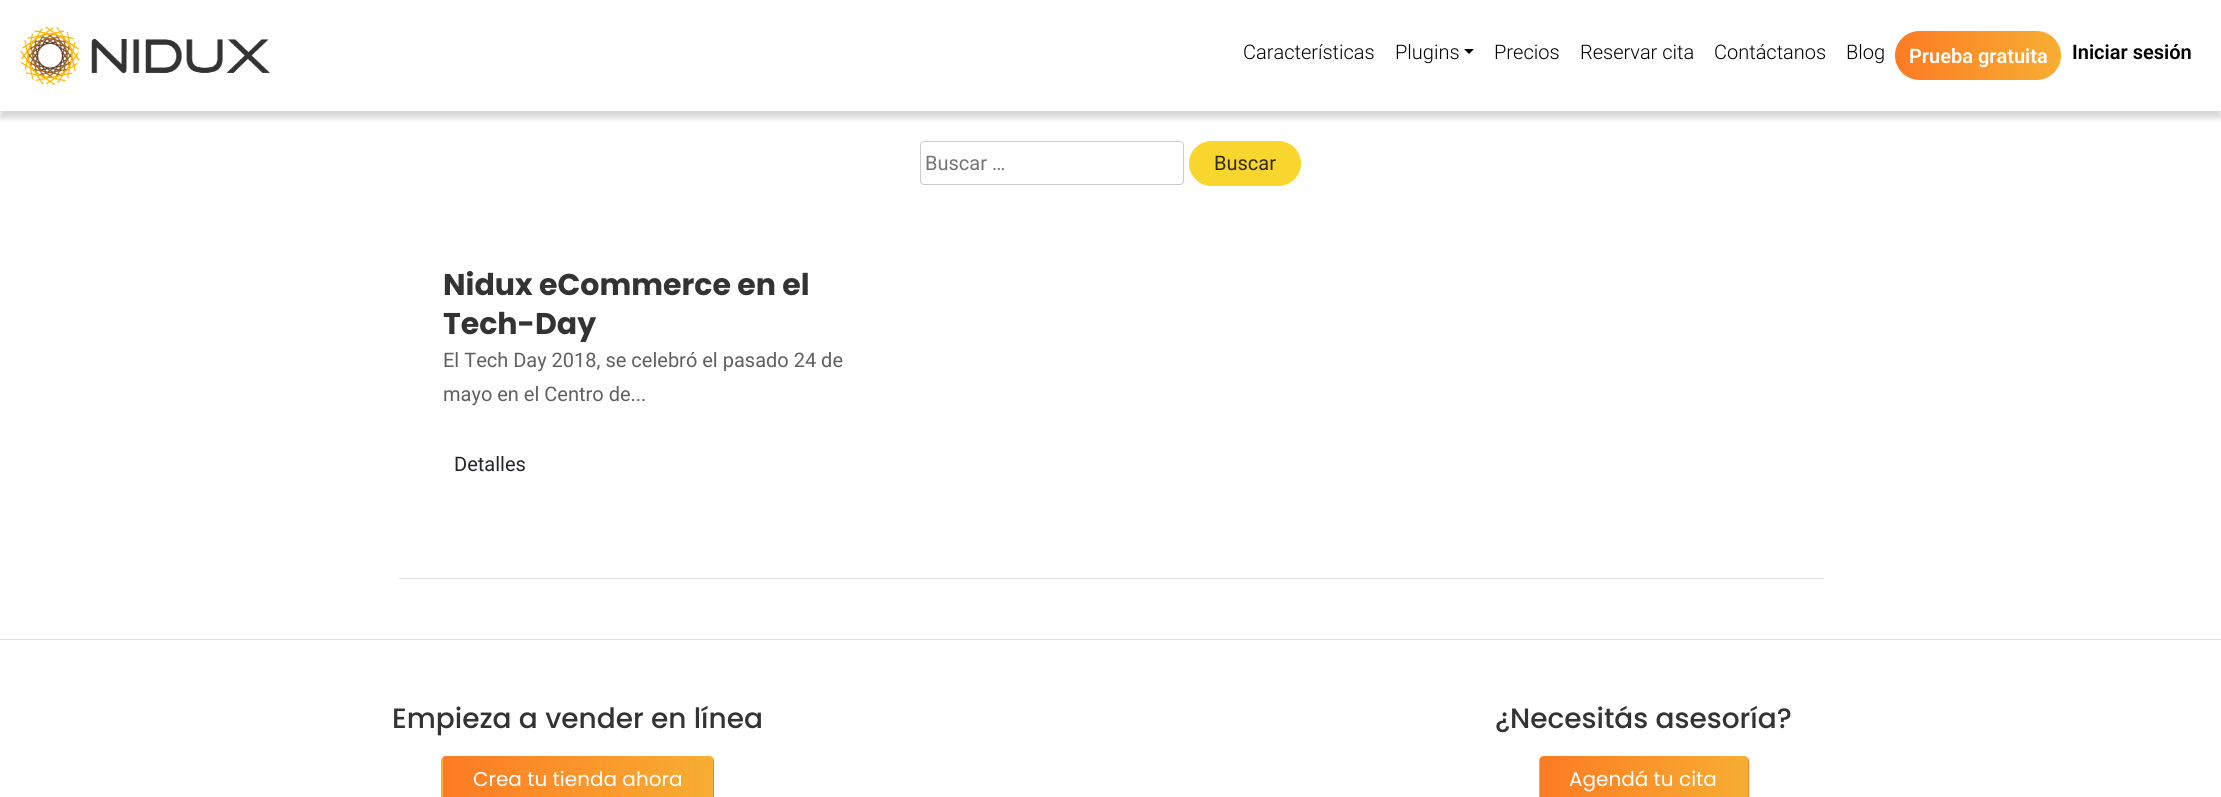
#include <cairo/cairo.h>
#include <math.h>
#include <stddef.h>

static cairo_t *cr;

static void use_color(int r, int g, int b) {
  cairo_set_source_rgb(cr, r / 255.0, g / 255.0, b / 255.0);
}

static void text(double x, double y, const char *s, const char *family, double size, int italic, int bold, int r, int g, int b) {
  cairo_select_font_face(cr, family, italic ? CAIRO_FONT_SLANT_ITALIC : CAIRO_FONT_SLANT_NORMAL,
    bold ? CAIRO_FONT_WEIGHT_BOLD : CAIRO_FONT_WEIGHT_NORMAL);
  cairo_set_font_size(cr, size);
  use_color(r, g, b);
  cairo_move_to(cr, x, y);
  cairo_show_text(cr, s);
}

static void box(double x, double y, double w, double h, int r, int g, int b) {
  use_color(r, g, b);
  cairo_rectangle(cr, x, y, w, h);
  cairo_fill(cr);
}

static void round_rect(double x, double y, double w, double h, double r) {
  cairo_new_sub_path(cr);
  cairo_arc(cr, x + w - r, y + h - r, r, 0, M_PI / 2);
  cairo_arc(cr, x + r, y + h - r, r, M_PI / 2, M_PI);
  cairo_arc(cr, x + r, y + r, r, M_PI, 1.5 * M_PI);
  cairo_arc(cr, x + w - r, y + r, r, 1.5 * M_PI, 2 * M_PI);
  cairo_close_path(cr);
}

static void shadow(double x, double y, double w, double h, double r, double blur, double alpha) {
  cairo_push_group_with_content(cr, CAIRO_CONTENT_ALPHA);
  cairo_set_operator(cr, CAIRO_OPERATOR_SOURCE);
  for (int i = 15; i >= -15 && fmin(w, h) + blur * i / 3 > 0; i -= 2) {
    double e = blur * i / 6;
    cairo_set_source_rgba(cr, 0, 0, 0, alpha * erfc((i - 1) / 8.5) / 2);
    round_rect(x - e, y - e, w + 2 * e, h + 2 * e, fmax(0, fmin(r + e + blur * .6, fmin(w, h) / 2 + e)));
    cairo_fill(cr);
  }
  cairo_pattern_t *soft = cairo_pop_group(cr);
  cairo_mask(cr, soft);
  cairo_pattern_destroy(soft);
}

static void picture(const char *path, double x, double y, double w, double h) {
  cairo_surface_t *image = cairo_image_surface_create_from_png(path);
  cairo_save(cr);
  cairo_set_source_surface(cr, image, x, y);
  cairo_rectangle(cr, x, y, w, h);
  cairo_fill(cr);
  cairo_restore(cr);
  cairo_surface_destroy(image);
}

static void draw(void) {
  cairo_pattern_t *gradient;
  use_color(255, 255, 255);
  cairo_paint(cr);
  cairo_save(cr);
  cairo_rectangle(cr, 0, 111, 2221, 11);
  cairo_clip(cr);
  use_color(50, 50, 50);
  shadow(0, 6, 2221, 112, 0, 3, 0.2);
  cairo_restore(cr);
  picture("img_01.png", 20, 26, 250, 59);
  use_color(0, 0, 0);
  cairo_new_path(cr);
  cairo_move_to(cr, 1464, 49);
  cairo_line_to(cr, 1474, 49);
  cairo_line_to(cr, 1469, 54);
  cairo_close_path(cr);
  cairo_fill(cr);
  gradient = cairo_pattern_create_linear(1895, 56, 2061, 56);
  cairo_pattern_add_color_stop_rgba(gradient, 0, 0.992, 0.482, 0.137, 1);
  cairo_pattern_add_color_stop_rgba(gradient, 1, 0.969, 0.682, 0.2, 1);
  cairo_set_source(cr, gradient);
  cairo_pattern_destroy(gradient);
  round_rect(1895, 31, 166, 49, 24.5);
  cairo_fill(cr);
  box(399, 578, 1425, 1, 222, 226, 230);
  round_rect(920.5, 141.5, 263, 43, 3.5);
  use_color(204, 204, 204);
  cairo_set_line_width(cr, 1);
  cairo_stroke(cr);
  use_color(249, 214, 46);
  round_rect(1189, 141, 112, 45, 22.5);
  cairo_fill(cr);
  box(0, 639, 2221, 1, 222, 226, 230);
  cairo_save(cr);
  round_rect(441, 756, 273, 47, 5);
  cairo_clip(cr);
  gradient = cairo_pattern_create_linear(173, 779, 443, 779);
  cairo_pattern_add_color_stop_rgba(gradient, 0, 0.992, 0.482, 0.137, 1);
  cairo_pattern_add_color_stop_rgba(gradient, 1, 0.969, 0.682, 0.2, 1);
  cairo_set_source(cr, gradient);
  cairo_pattern_destroy(gradient);
  cairo_rectangle(cr, 441, 756, 2, 41);
  cairo_fill(cr);
  gradient = cairo_pattern_create_linear(443, 779, 713, 779);
  cairo_pattern_add_color_stop_rgba(gradient, 0, 0.992, 0.482, 0.137, 1);
  cairo_pattern_add_color_stop_rgba(gradient, 1, 0.969, 0.682, 0.2, 1);
  cairo_set_source(cr, gradient);
  cairo_pattern_destroy(gradient);
  cairo_rectangle(cr, 443, 756, 270, 41);
  cairo_fill(cr);
  gradient = cairo_pattern_create_linear(713, 779, 983, 779);
  cairo_pattern_add_color_stop_rgba(gradient, 0, 0.992, 0.482, 0.137, 1);
  cairo_pattern_add_color_stop_rgba(gradient, 1, 0.969, 0.682, 0.2, 1);
  cairo_set_source(cr, gradient);
  cairo_pattern_destroy(gradient);
  cairo_rectangle(cr, 713, 756, 1, 41);
  cairo_fill(cr);
  cairo_restore(cr);
  cairo_save(cr);
  round_rect(1539, 756, 210, 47, 5);
  cairo_clip(cr);
  gradient = cairo_pattern_create_linear(1333, 779, 1540, 779);
  cairo_pattern_add_color_stop_rgba(gradient, 0, 0.992, 0.482, 0.137, 1);
  cairo_pattern_add_color_stop_rgba(gradient, 1, 0.969, 0.682, 0.2, 1);
  cairo_set_source(cr, gradient);
  cairo_pattern_destroy(gradient);
  cairo_rectangle(cr, 1539, 756, 1, 41);
  cairo_fill(cr);
  gradient = cairo_pattern_create_linear(1540, 779, 1748, 779);
  cairo_pattern_add_color_stop_rgba(gradient, 0, 0.992, 0.482, 0.137, 1);
  cairo_pattern_add_color_stop_rgba(gradient, 1, 0.969, 0.682, 0.2, 1);
  cairo_set_source(cr, gradient);
  cairo_pattern_destroy(gradient);
  cairo_rectangle(cr, 1540, 756, 208, 41);
  cairo_fill(cr);
  gradient = cairo_pattern_create_linear(1748, 779, 1955, 779);
  cairo_pattern_add_color_stop_rgba(gradient, 0, 0.992, 0.482, 0.137, 1);
  cairo_pattern_add_color_stop_rgba(gradient, 1, 0.969, 0.682, 0.2, 1);
  cairo_set_source(cr, gradient);
  cairo_pattern_destroy(gradient);
  cairo_rectangle(cr, 1748, 756, 1, 41);
  cairo_fill(cr);
  cairo_restore(cr);
  text(1243, 59, "Características", "Roboto Light", 20, 0, 0, 0, 0, 0);
  text(1395, 59, "Plugins", "Roboto Light", 20, 0, 0, 0, 0, 0);
  text(1494, 59, "Precios", "Roboto Light", 20, 0, 0, 0, 0, 0);
  text(1580, 59, "Reservar cita", "Roboto Light", 20, 0, 0, 0, 0, 0);
  text(1714, 59, "Contáctanos", "Roboto Light", 20, 0, 0, 0, 0, 0);
  text(1846, 59, "Blog", "Roboto Light", 20, 0, 0, 0, 0, 0);
  text(1909, 63, "Prueba gratuita", "Roboto SemiBold", 20, 0, 0, 255, 255, 255);
  text(2072, 59, "Iniciar sesión", "Roboto SemiBold", 20, 0, 0, 0, 0, 0);
  text(925, 170, "Buscar …", "Roboto", 20, 0, 0, 117, 117, 117);
  text(1214, 170, "Buscar", "Roboto", 20, 0, 0, 50, 43, 9);
  text(443, 295, "Nidux eCommerce en el", "Poppins", 30, 0, 1, 51, 51, 51);
  text(443, 334, "Tech-Day", "Poppins", 30, 0, 1, 51, 51, 51);
  text(443, 367, "El Tech Day 2018, se celebró el pasado 24 de", "Roboto", 20, 0, 0, 96, 96, 96);
  text(443, 401, "mayo en el Centro de...", "Roboto", 20, 0, 0, 96, 96, 96);
  text(454, 471, "Detalles", "Roboto", 20, 0, 0, 33, 37, 41);
  text(392, 728, "Empieza a vender en línea", "Poppins Medium", 28, 0, 0, 51, 51, 51);
  text(473, 786, "Crea tu tienda ahora", "Poppins", 20, 0, 0, 255, 255, 255);
  text(1495, 728, "¿Necesitás asesoría?", "Poppins Medium", 28, 0, 0, 51, 51, 51);
  text(1569, 786, "Agendá tu cita", "Poppins", 20, 0, 0, 255, 255, 255);
}

int main(void) {
  cairo_surface_t *surface = cairo_image_surface_create(CAIRO_FORMAT_RGB24, 2221, 797);
  cr = cairo_create(surface);
  cairo_font_options_t *options = cairo_font_options_create();
  cairo_font_options_set_hint_metrics(options, CAIRO_HINT_METRICS_OFF);
  cairo_font_options_set_hint_style(options, CAIRO_HINT_STYLE_NONE);
  cairo_set_font_options(cr, options);
  cairo_set_miter_limit(cr, 4);
  draw();
  cairo_surface_write_to_png(surface, "out.png");
  cairo_font_options_destroy(options);
  cairo_destroy(cr);
  cairo_surface_destroy(surface);
  return 0;
}
